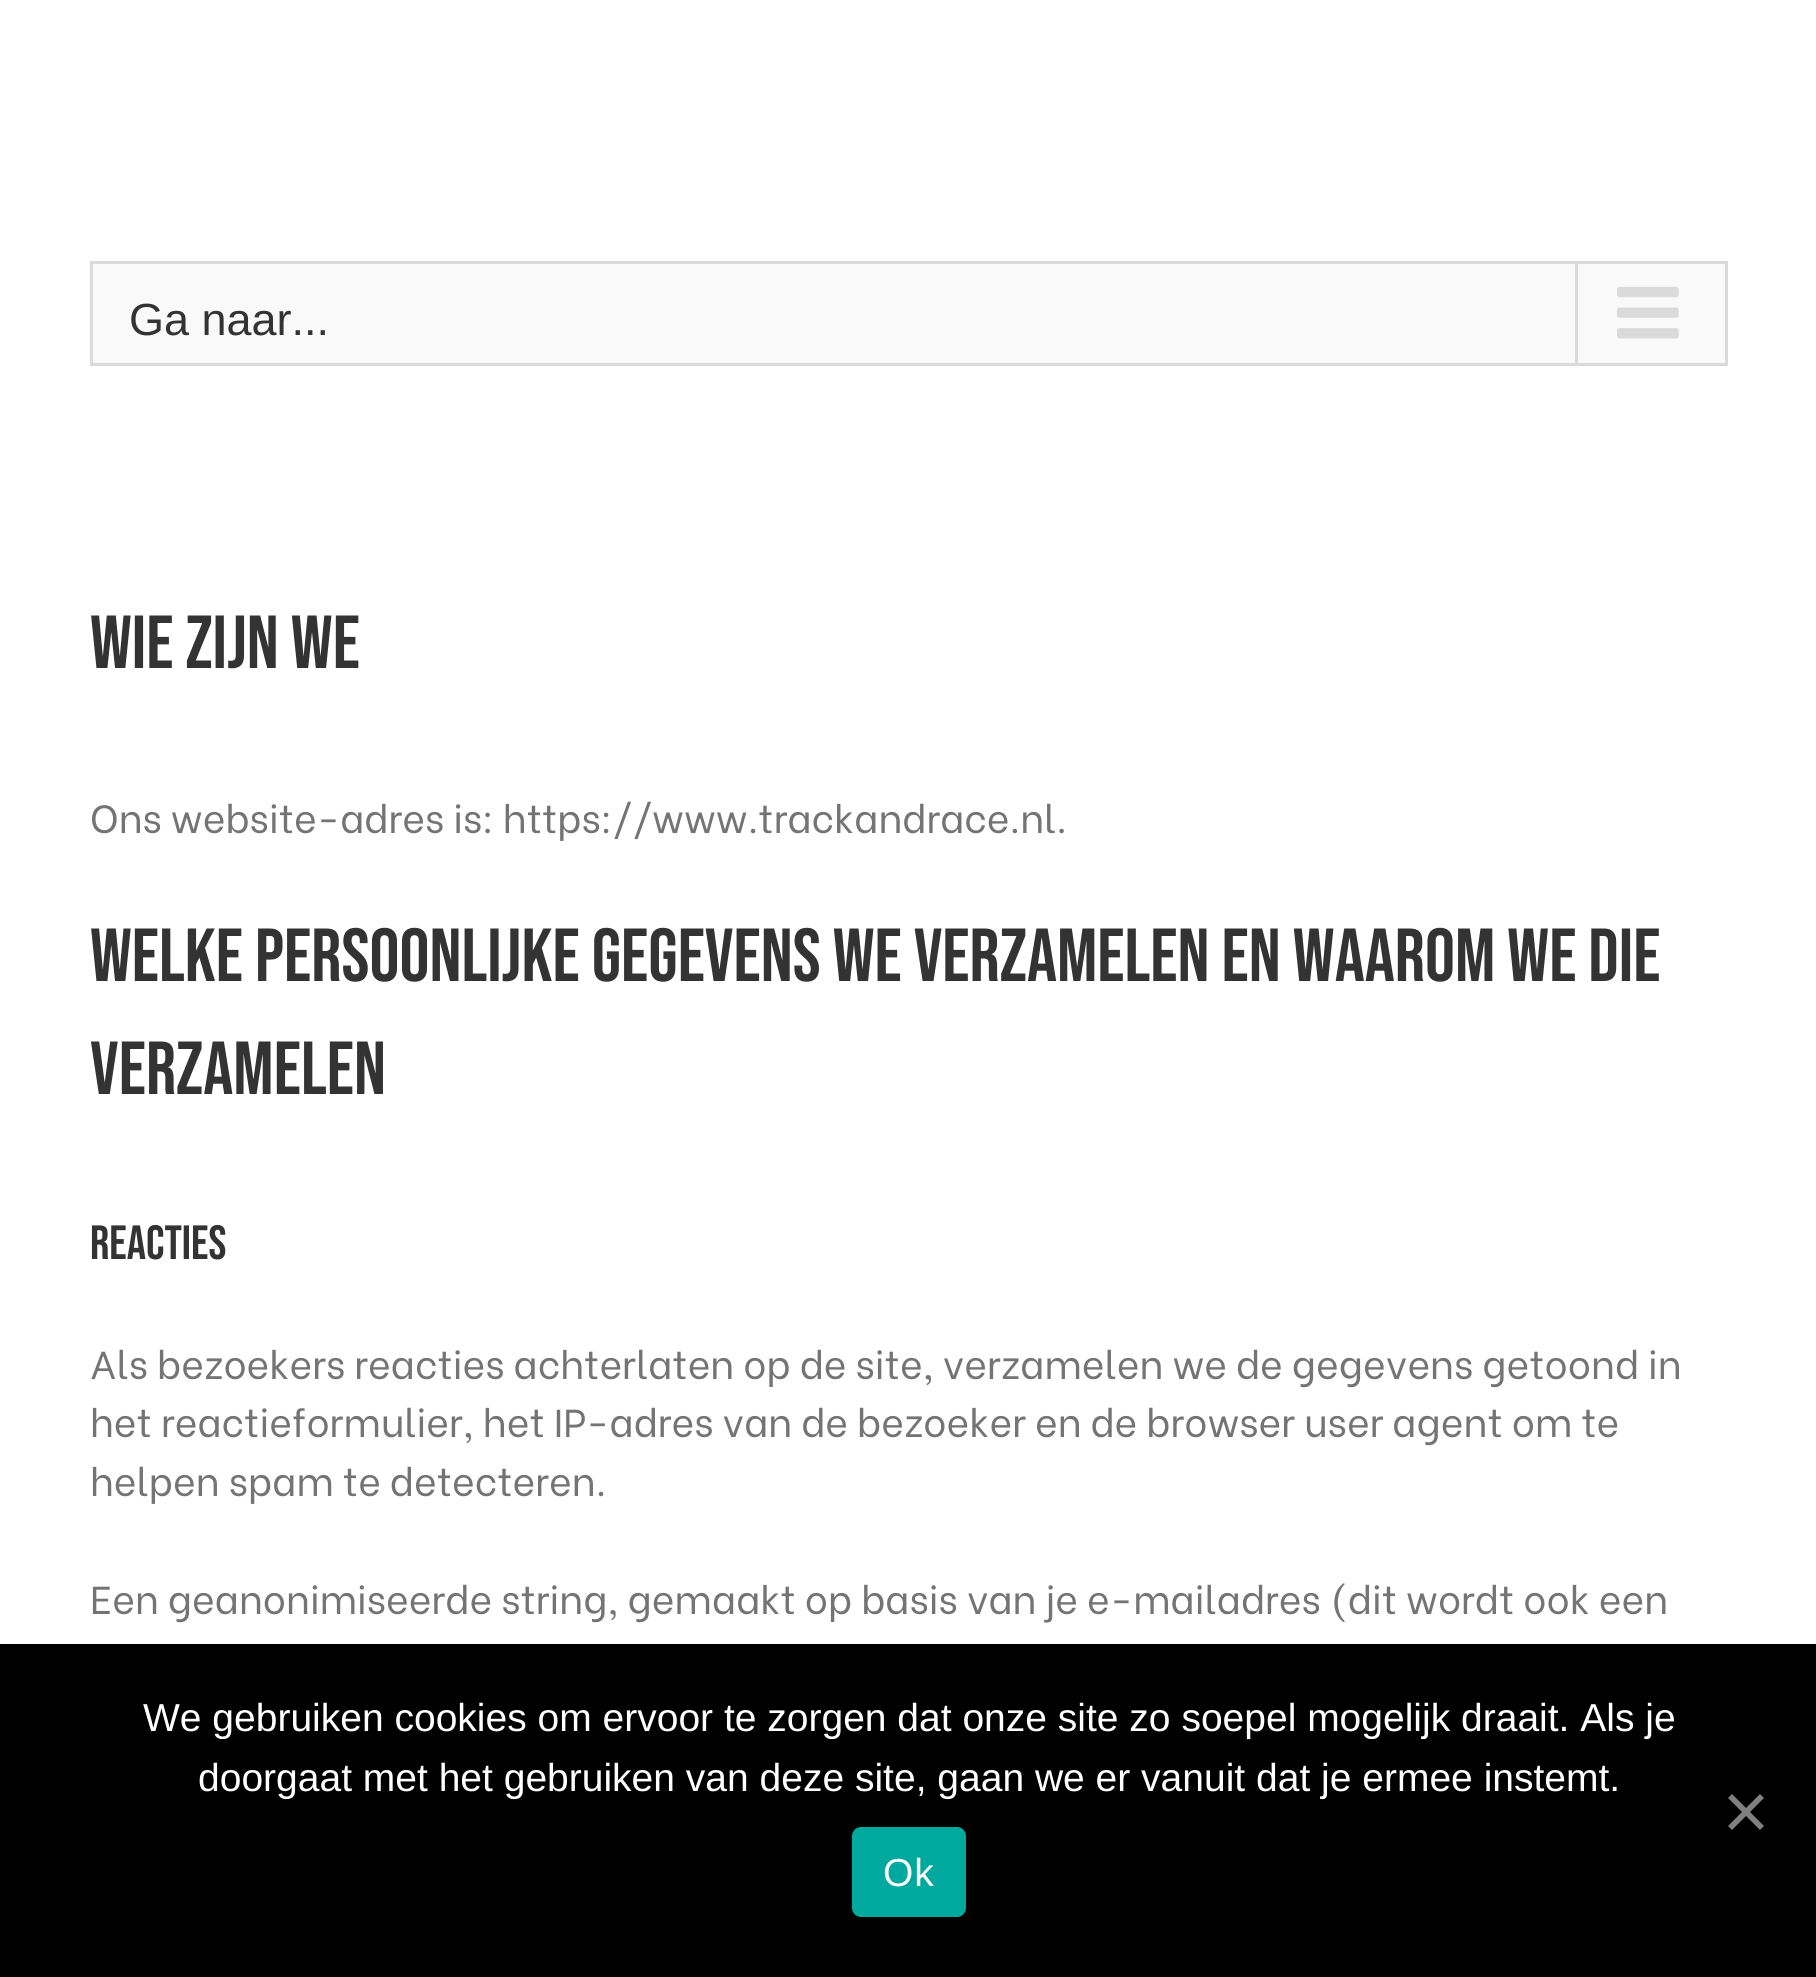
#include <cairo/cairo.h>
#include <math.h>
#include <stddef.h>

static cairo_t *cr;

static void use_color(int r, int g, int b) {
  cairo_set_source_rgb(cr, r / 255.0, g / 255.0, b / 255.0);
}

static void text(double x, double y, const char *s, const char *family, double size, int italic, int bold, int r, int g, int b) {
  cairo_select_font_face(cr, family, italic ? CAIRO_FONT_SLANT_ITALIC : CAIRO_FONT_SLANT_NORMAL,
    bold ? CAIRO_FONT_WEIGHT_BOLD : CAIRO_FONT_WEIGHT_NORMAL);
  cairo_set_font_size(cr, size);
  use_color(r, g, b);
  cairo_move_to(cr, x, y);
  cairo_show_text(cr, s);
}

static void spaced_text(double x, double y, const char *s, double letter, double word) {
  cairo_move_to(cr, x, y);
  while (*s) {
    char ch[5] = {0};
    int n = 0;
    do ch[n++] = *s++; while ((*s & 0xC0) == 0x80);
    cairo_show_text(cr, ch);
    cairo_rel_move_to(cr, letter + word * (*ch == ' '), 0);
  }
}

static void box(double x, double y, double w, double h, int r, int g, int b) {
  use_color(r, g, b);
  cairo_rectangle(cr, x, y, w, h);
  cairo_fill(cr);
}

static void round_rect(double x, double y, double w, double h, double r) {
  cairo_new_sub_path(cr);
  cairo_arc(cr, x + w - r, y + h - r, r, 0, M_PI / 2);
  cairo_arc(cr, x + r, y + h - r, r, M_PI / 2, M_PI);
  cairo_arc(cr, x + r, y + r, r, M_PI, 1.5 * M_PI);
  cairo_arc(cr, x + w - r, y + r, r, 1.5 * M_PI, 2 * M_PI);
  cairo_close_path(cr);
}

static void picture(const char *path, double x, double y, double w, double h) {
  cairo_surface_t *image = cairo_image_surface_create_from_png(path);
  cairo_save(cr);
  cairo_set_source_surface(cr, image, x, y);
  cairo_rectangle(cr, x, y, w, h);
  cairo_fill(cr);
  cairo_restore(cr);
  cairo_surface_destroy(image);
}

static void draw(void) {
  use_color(255, 255, 255);
  cairo_paint(cr);
  use_color(249, 249, 249);
  cairo_rectangle(cr, 91.5, 262.5, 1635, 102);
  cairo_fill_preserve(cr);
  use_color(218, 218, 218);
  cairo_set_line_width(cr, 3);
  cairo_stroke(cr);
  box(1575, 264, 3, 99, 218, 218, 218);
  picture("img_01.png", 1617, 286, 62, 53);
  box(0, 1644, 1816, 333, 0, 0, 0);
  use_color(128, 128, 128);
  cairo_new_path(cr);
  cairo_move_to(cr, 1760, 1794);
  cairo_line_to(cr, 1764, 1798);
  cairo_line_to(cr, 1732, 1830);
  cairo_line_to(cr, 1728, 1826);
  cairo_close_path(cr);
  cairo_fill(cr);
  cairo_new_path(cr);
  cairo_move_to(cr, 1728, 1798);
  cairo_line_to(cr, 1732, 1794);
  cairo_line_to(cr, 1764, 1826);
  cairo_line_to(cr, 1760, 1830);
  cairo_close_path(cr);
  cairo_fill(cr);
  use_color(0, 169, 157);
  round_rect(852, 1827, 114, 90, 9);
  cairo_fill(cr);
  text(129, 335, "Ga naar...", "Liberation Sans", 45, 0, 0, 51, 51, 51);
  text(90, 668, "Wie zijn we", "Bebas Neue", 75, 0, 0, 51, 51, 51);
  text(90, 833, "Ons website-adres is: https://www.trackandrace.nl.", "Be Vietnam", 39, 0, 0, 116, 116, 116);
  text(90, 981, "Welke persoonlijke gegevens we verzamelen en waarom we die", "Bebas Neue", 75, 0, 0, 51, 51, 51);
  text(90, 1094, "verzamelen", "Bebas Neue", 75, 0, 0, 51, 51, 51);
  text(90, 1259, "Reacties", "Bebas Neue", 48, 0, 0, 51, 51, 51);
  text(90, 1379, "Als bezoekers reacties achterlaten op de site, verzamelen we de gegevens getoond in", "Be Vietnam", 39, 0, 0, 116, 116, 116);
  text(90, 1437, "het reactieformulier, het IP-adres van de bezoeker en de browser user agent om te", "Be Vietnam", 39, 0, 0, 116, 116, 116);
  text(90, 1496, "helpen spam te detecteren.", "Be Vietnam", 39, 0, 0, 116, 116, 116);
  text(90, 1614, "Een geanonimiseerde string, gemaakt op basis van je e-mailadres (dit wordt ook een", "Be Vietnam", 39, 0, 0, 116, 116, 116);
  text(143, 1731, "We gebruiken cookies om ervoor te zorgen dat onze site zo soepel mogelijk draait. Als je", "Liberation Sans", 39, 0, 0, 255, 255, 255);
  text(198, 1791, "doorgaat met het gebruiken van deze site, gaan we er vanuit dat je ermee instemt.", "Liberation Sans", 39, 0, 0, 255, 255, 255);
  spaced_text(883, 1886, "Ok", 1, 0);
}

int main(void) {
  cairo_surface_t *surface = cairo_image_surface_create(CAIRO_FORMAT_RGB24, 1816, 1977);
  cr = cairo_create(surface);
  cairo_font_options_t *options = cairo_font_options_create();
  cairo_font_options_set_hint_metrics(options, CAIRO_HINT_METRICS_OFF);
  cairo_font_options_set_hint_style(options, CAIRO_HINT_STYLE_NONE);
  cairo_set_font_options(cr, options);
  cairo_set_miter_limit(cr, 4);
  draw();
  cairo_surface_write_to_png(surface, "out.png");
  cairo_font_options_destroy(options);
  cairo_destroy(cr);
  cairo_surface_destroy(surface);
  return 0;
}
